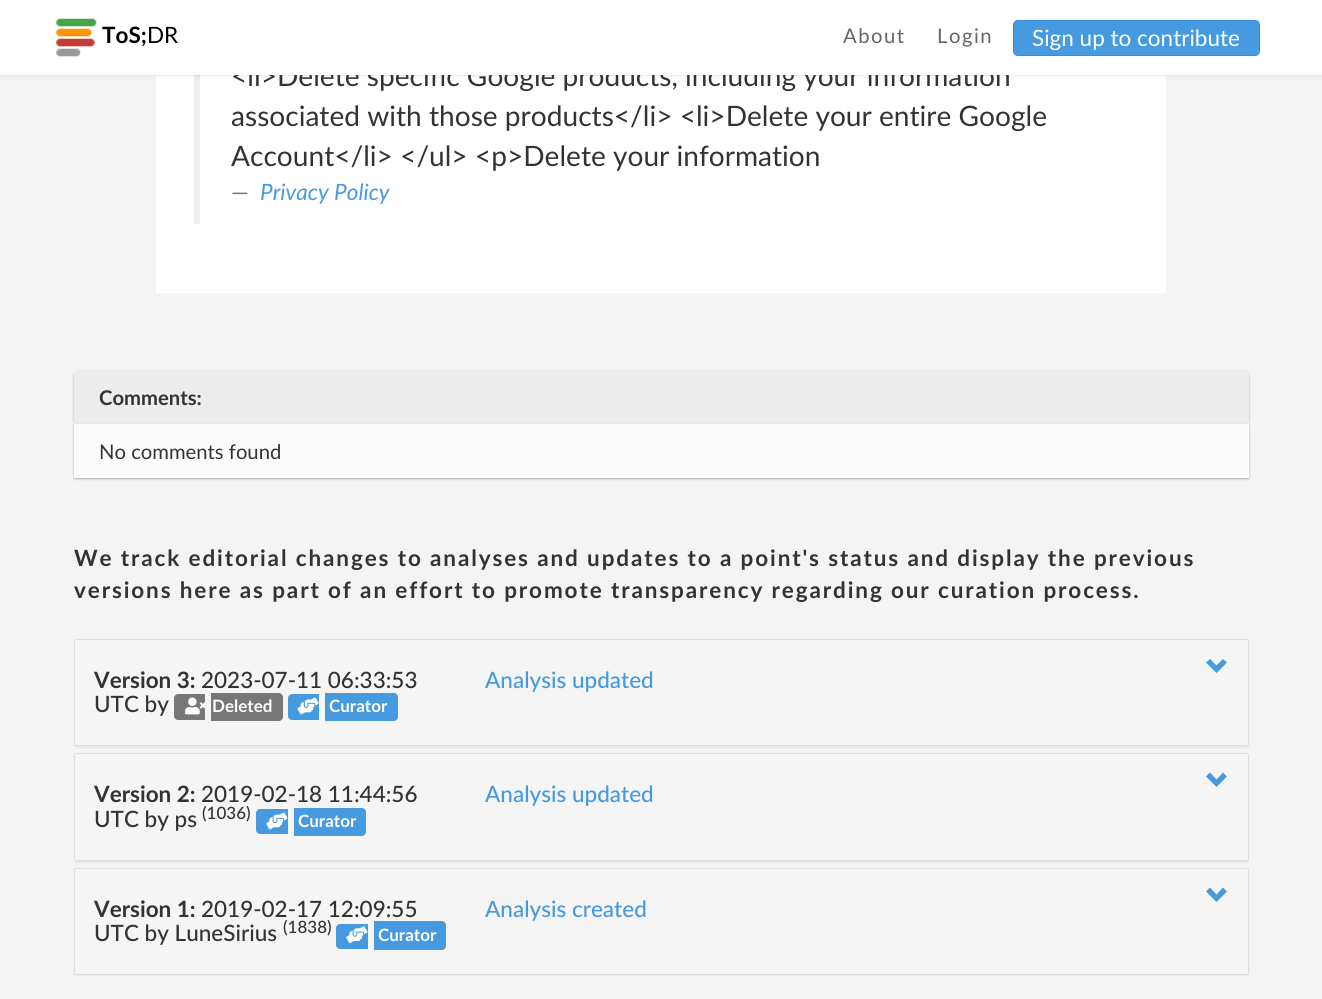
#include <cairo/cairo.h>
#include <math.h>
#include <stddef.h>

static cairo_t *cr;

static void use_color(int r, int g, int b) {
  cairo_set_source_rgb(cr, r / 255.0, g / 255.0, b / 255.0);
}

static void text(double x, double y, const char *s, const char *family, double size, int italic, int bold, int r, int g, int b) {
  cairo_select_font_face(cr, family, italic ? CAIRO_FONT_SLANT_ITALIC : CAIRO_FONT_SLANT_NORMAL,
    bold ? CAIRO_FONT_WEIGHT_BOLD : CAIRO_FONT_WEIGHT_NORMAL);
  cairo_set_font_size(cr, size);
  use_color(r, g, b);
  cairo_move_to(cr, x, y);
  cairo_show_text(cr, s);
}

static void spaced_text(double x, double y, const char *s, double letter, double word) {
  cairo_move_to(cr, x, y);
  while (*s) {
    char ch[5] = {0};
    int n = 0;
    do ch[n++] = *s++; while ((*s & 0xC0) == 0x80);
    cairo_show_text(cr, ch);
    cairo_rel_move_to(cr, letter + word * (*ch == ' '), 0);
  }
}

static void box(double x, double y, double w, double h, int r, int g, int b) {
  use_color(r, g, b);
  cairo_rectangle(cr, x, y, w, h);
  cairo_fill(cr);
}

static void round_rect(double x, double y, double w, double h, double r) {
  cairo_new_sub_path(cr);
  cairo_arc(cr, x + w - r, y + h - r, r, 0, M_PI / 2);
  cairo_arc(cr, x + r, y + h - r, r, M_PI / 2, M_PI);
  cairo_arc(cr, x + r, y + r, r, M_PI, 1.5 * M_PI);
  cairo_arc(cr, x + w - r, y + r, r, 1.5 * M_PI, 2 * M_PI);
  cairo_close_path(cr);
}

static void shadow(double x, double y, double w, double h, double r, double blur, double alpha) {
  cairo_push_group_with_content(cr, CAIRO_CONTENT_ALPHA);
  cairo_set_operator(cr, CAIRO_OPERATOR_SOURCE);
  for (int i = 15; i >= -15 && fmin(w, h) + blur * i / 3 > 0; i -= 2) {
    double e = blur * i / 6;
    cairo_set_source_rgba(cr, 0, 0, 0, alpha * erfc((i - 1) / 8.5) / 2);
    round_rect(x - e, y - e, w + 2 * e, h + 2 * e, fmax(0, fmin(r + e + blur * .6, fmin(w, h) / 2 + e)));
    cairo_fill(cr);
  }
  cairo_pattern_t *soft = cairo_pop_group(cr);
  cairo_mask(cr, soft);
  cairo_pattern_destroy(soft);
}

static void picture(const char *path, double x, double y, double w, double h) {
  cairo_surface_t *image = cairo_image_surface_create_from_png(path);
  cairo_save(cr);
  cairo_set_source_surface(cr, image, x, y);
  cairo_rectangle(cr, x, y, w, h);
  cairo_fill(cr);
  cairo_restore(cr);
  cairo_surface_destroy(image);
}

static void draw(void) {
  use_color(244, 244, 244);
  cairo_paint(cr);
  box(156, 75, 1010, 218, 255, 255, 255);
  box(194, 75, 6, 149, 238, 238, 238);
  cairo_set_source_rgba(cr, 0, 0, 0, 0.03);
  cairo_new_path(cr);
  cairo_move_to(cr, 0, 75);
  cairo_line_to(cr, 0, 76);
  cairo_line_to(cr, 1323, 76);
  cairo_line_to(cr, 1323, 1);
  cairo_line_to(cr, 1322, 1);
  cairo_line_to(cr, 1322, 75);
  cairo_close_path(cr);
  cairo_fill(cr);
  use_color(0, 0, 0);
  shadow(0, 1, 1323, 75, 0, 3, 0.07);
  shadow(74, 371, 1175, 54, 5, 1, 0.3);
  use_color(237, 237, 237);
  cairo_new_path(cr);
  cairo_move_to(cr, 79, 370);
  cairo_line_to(cr, 1244, 370);
  cairo_curve_to(cr, 1247, 370, 1249, 372, 1249, 375);
  cairo_line_to(cr, 1249, 424);
  cairo_line_to(cr, 74, 424);
  cairo_line_to(cr, 74, 375);
  cairo_curve_to(cr, 74, 372, 76, 370, 79, 370);
  cairo_close_path(cr);
  cairo_fill(cr);
  use_color(0, 0, 0);
  shadow(74, 425, 1175, 54, 0, 1, 0.3);
  box(74, 424, 1175, 54, 252, 252, 252);
  use_color(0, 0, 0);
  shadow(74, 640, 1175, 108, 2.5, 0.5, 0.05);
  round_rect(74.5, 639.5, 1174, 106, 2);
  use_color(221, 221, 221);
  cairo_set_line_width(cr, 1);
  cairo_stroke(cr);
  use_color(245, 245, 245);
  cairo_new_path(cr);
  cairo_move_to(cr, 76, 640);
  cairo_line_to(cr, 1247, 640);
  cairo_curve_to(cr, 1247.5, 640, 1248, 640.5, 1248, 641);
  cairo_line_to(cr, 1248, 745);
  cairo_line_to(cr, 75, 745);
  cairo_line_to(cr, 75, 641);
  cairo_curve_to(cr, 75, 640.5, 75.5, 640, 76, 640);
  cairo_close_path(cr);
  cairo_fill(cr);
  use_color(70, 154, 224);
  cairo_new_path(cr);
  cairo_move_to(cr, 1227, 662.5);
  cairo_line_to(cr, 1216.5, 673);
  cairo_line_to(cr, 1206, 662.5);
  cairo_line_to(cr, 1210, 659);
  cairo_line_to(cr, 1216.5, 665.5);
  cairo_line_to(cr, 1223, 659);
  cairo_close_path(cr);
  cairo_fill(cr);
  use_color(119, 119, 119);
  cairo_new_path(cr);
  cairo_move_to(cr, 178, 694);
  cairo_line_to(cr, 205, 694);
  cairo_line_to(cr, 205, 720);
  cairo_line_to(cr, 178, 720);
  cairo_curve_to(cr, 176, 720, 174, 718, 174, 716);
  cairo_line_to(cr, 174, 698);
  cairo_curve_to(cr, 174, 696, 176, 694, 178, 694);
  cairo_close_path(cr);
  cairo_fill(cr);
  cairo_new_path(cr);
  cairo_move_to(cr, 211, 693);
  cairo_line_to(cr, 279, 693);
  cairo_curve_to(cr, 281, 693, 283, 695, 283, 697);
  cairo_line_to(cr, 283, 717);
  cairo_curve_to(cr, 283, 719, 281, 721, 279, 721);
  cairo_line_to(cr, 211, 721);
  cairo_close_path(cr);
  cairo_fill(cr);
  picture("img_02.png", 185, 697, 21, 18);
  use_color(70, 154, 224);
  cairo_new_path(cr);
  cairo_move_to(cr, 292, 694);
  cairo_line_to(cr, 319, 694);
  cairo_line_to(cr, 319, 720);
  cairo_line_to(cr, 292, 720);
  cairo_curve_to(cr, 290, 720, 288, 718, 288, 716);
  cairo_line_to(cr, 288, 698);
  cairo_curve_to(cr, 288, 696, 290, 694, 292, 694);
  cairo_close_path(cr);
  cairo_fill(cr);
  cairo_new_path(cr);
  cairo_move_to(cr, 325, 693);
  cairo_line_to(cr, 394, 693);
  cairo_curve_to(cr, 396, 693, 398, 695, 398, 697);
  cairo_line_to(cr, 398, 717);
  cairo_curve_to(cr, 398, 719, 396, 721, 394, 721);
  cairo_line_to(cr, 325, 721);
  cairo_close_path(cr);
  cairo_fill(cr);
  picture("img_03.png", 297, 697, 22, 18);
  use_color(0, 0, 0);
  shadow(74, 754, 1175, 109, 2.5, 0.5, 0.05);
  round_rect(74.5, 753.5, 1174, 107, 2);
  use_color(221, 221, 221);
  cairo_stroke(cr);
  use_color(245, 245, 245);
  cairo_new_path(cr);
  cairo_move_to(cr, 76, 754);
  cairo_line_to(cr, 1247, 754);
  cairo_curve_to(cr, 1247.5, 754, 1248, 754.5, 1248, 755);
  cairo_line_to(cr, 1248, 860);
  cairo_line_to(cr, 75, 860);
  cairo_line_to(cr, 75, 755);
  cairo_curve_to(cr, 75, 754.5, 75.5, 754, 76, 754);
  cairo_close_path(cr);
  cairo_fill(cr);
  use_color(70, 154, 224);
  cairo_new_path(cr);
  cairo_move_to(cr, 1227, 776.5);
  cairo_line_to(cr, 1216.5, 787);
  cairo_line_to(cr, 1206, 776.5);
  cairo_line_to(cr, 1210, 772.5);
  cairo_line_to(cr, 1216.5, 779.5);
  cairo_line_to(cr, 1223, 772.5);
  cairo_close_path(cr);
  cairo_fill(cr);
  cairo_new_path(cr);
  cairo_move_to(cr, 260, 809);
  cairo_line_to(cr, 288, 809);
  cairo_line_to(cr, 288, 834);
  cairo_line_to(cr, 260, 834);
  cairo_curve_to(cr, 258, 834, 256, 832, 256, 830);
  cairo_line_to(cr, 256, 813);
  cairo_curve_to(cr, 256, 811, 258, 809, 260, 809);
  cairo_close_path(cr);
  cairo_fill(cr);
  cairo_new_path(cr);
  cairo_move_to(cr, 294, 808);
  cairo_line_to(cr, 362, 808);
  cairo_curve_to(cr, 364, 808, 366, 810, 366, 812);
  cairo_line_to(cr, 366, 832);
  cairo_curve_to(cr, 366, 834, 364, 836, 362, 836);
  cairo_line_to(cr, 294, 836);
  cairo_close_path(cr);
  cairo_fill(cr);
  picture("img_04.png", 266, 812, 22, 18);
  use_color(0, 0, 0);
  shadow(74, 869, 1175, 107, 2.5, 0.5, 0.05);
  round_rect(74.5, 868.5, 1174, 106, 2);
  use_color(221, 221, 221);
  cairo_stroke(cr);
  use_color(245, 245, 245);
  cairo_new_path(cr);
  cairo_move_to(cr, 76, 869);
  cairo_line_to(cr, 1247, 869);
  cairo_curve_to(cr, 1247.5, 869, 1248, 869.5, 1248, 870);
  cairo_line_to(cr, 1248, 974);
  cairo_line_to(cr, 75, 974);
  cairo_line_to(cr, 75, 870);
  cairo_curve_to(cr, 75, 869.5, 75.5, 869, 76, 869);
  cairo_close_path(cr);
  cairo_fill(cr);
  use_color(70, 154, 224);
  cairo_new_path(cr);
  cairo_move_to(cr, 1227, 891.5);
  cairo_line_to(cr, 1216.5, 902);
  cairo_line_to(cr, 1206, 891.5);
  cairo_line_to(cr, 1210, 887.5);
  cairo_line_to(cr, 1216.5, 894.5);
  cairo_line_to(cr, 1223, 887.5);
  cairo_close_path(cr);
  cairo_fill(cr);
  cairo_new_path(cr);
  cairo_move_to(cr, 340, 924);
  cairo_line_to(cr, 368, 924);
  cairo_line_to(cr, 368, 949);
  cairo_line_to(cr, 340, 949);
  cairo_curve_to(cr, 338, 949, 336, 947, 336, 945);
  cairo_line_to(cr, 336, 928);
  cairo_curve_to(cr, 336, 926, 338, 924, 340, 924);
  cairo_close_path(cr);
  cairo_fill(cr);
  cairo_new_path(cr);
  cairo_move_to(cr, 374, 921);
  cairo_line_to(cr, 442, 921);
  cairo_curve_to(cr, 444, 921, 446, 923, 446, 925);
  cairo_line_to(cr, 446, 946);
  cairo_curve_to(cr, 446, 948, 444, 950, 442, 950);
  cairo_line_to(cr, 374, 950);
  cairo_close_path(cr);
  cairo_fill(cr);
  picture("img_05.png", 346, 926, 22, 18);
  text(231, 86, "<li>Delete specific Google products, including your information", "Lato", 28.1, 0, 0, 51, 51, 51);
  box(0, 0, 1322, 75, 255, 255, 255);
  use_color(70, 154, 224);
  round_rect(1013.5, 20.5, 246, 35, 4.5);
  cairo_fill_preserve(cr);
  use_color(48, 142, 220);
  cairo_stroke(cr);
  text(1032, 46, "Sign up to contribute", "Lato", 22.5, 0, 0, 255, 255, 255);
  cairo_set_font_size(cr, 20.25);
  use_color(97, 102, 104);
  spaced_text(937, 43, "Login", 1.5, 0);
  spaced_text(843, 43, "About", 1.5, 0);
  text(147, 43, "DR", "Lato", 22.5, 0, 0, 0, 0, 0);
  text(102, 43, "ToS;", "Lato", 22.5, 0, 1, 0, 0, 0);
  picture("img_01.png", 56, 18, 41, 39);
  text(231, 126, "associated with those products</li> <li>Delete your entire Google", "Lato", 28.1, 0, 0, 51, 51, 51);
  text(231, 166, "Account</li> </ul> <p>Delete your information", "Lato", 28.1, 0, 0, 51, 51, 51);
  text(231, 200, "—", "Lato", 22.5, 0, 0, 119, 119, 119);
  text(260, 200, "Privacy Policy", "Lato", 22.5, 1, 0, 70, 154, 224);
  text(99, 405, "Comments:", "Lato", 20.25, 0, 1, 51, 51, 51);
  text(99, 459, "No comments found", "Lato", 20.25, 0, 0, 51, 51, 51);
  cairo_select_font_face(cr, "Lato", CAIRO_FONT_SLANT_NORMAL, CAIRO_FONT_WEIGHT_BOLD);
  cairo_set_font_size(cr, 22.5);
  spaced_text(74, 566, "We track editorial changes to analyses and updates to a point's status and display the previous", 1.88, 0);
  spaced_text(74, 598, "versions here as part of an effort to promote transparency regarding our curation process.", 1.88, 0);
  text(94, 688, "Version 3:", "Lato", 22.5, 0, 1, 51, 51, 51);
  text(201, 688, "2023-07-11 06:33:53", "Lato Medium", 22.5, 0, 0, 51, 51, 51);
  text(94, 712, "UTC by", "Lato Medium", 22.5, 0, 0, 51, 51, 51);
  text(212, 712, "Deleted", "Lato", 17, 0, 1, 255, 255, 255);
  text(329, 712, "Curator", "Lato", 17, 0, 1, 255, 255, 255);
  text(485, 688, "Analysis updated", "Lato Medium", 22.5, 0, 0, 70, 154, 224);
  text(94, 802, "Version 2:", "Lato", 22.5, 0, 1, 51, 51, 51);
  text(201, 802, "2019-02-18 11:44:56", "Lato Medium", 22.5, 0, 0, 51, 51, 51);
  text(94, 827, "UTC by ps", "Lato Medium", 22.5, 0, 0, 51, 51, 51);
  text(202, 819, "(1036)", "Lato Medium", 17, 0, 0, 51, 51, 51);
  text(298, 827, "Curator", "Lato", 17, 0, 1, 255, 255, 255);
  text(485, 802, "Analysis updated", "Lato Medium", 22.5, 0, 0, 70, 154, 224);
  text(94, 917, "Version 1:", "Lato", 22.5, 0, 1, 51, 51, 51);
  text(201, 917, "2019-02-17 12:09:55", "Lato Medium", 22.5, 0, 0, 51, 51, 51);
  text(94, 941, "UTC by LuneSirius", "Lato Medium", 22.5, 0, 0, 51, 51, 51);
  text(283, 933, "(1838)", "Lato Medium", 17, 0, 0, 51, 51, 51);
  text(378, 941, "Curator", "Lato", 17, 0, 1, 255, 255, 255);
  text(485, 917, "Analysis created", "Lato Medium", 22.5, 0, 0, 70, 154, 224);
}

int main(void) {
  cairo_surface_t *surface = cairo_image_surface_create(CAIRO_FORMAT_RGB24, 1322, 999);
  cr = cairo_create(surface);
  cairo_font_options_t *options = cairo_font_options_create();
  cairo_font_options_set_hint_metrics(options, CAIRO_HINT_METRICS_OFF);
  cairo_font_options_set_hint_style(options, CAIRO_HINT_STYLE_NONE);
  cairo_set_font_options(cr, options);
  cairo_set_miter_limit(cr, 4);
  draw();
  cairo_surface_write_to_png(surface, "out.png");
  cairo_font_options_destroy(options);
  cairo_destroy(cr);
  cairo_surface_destroy(surface);
  return 0;
}
